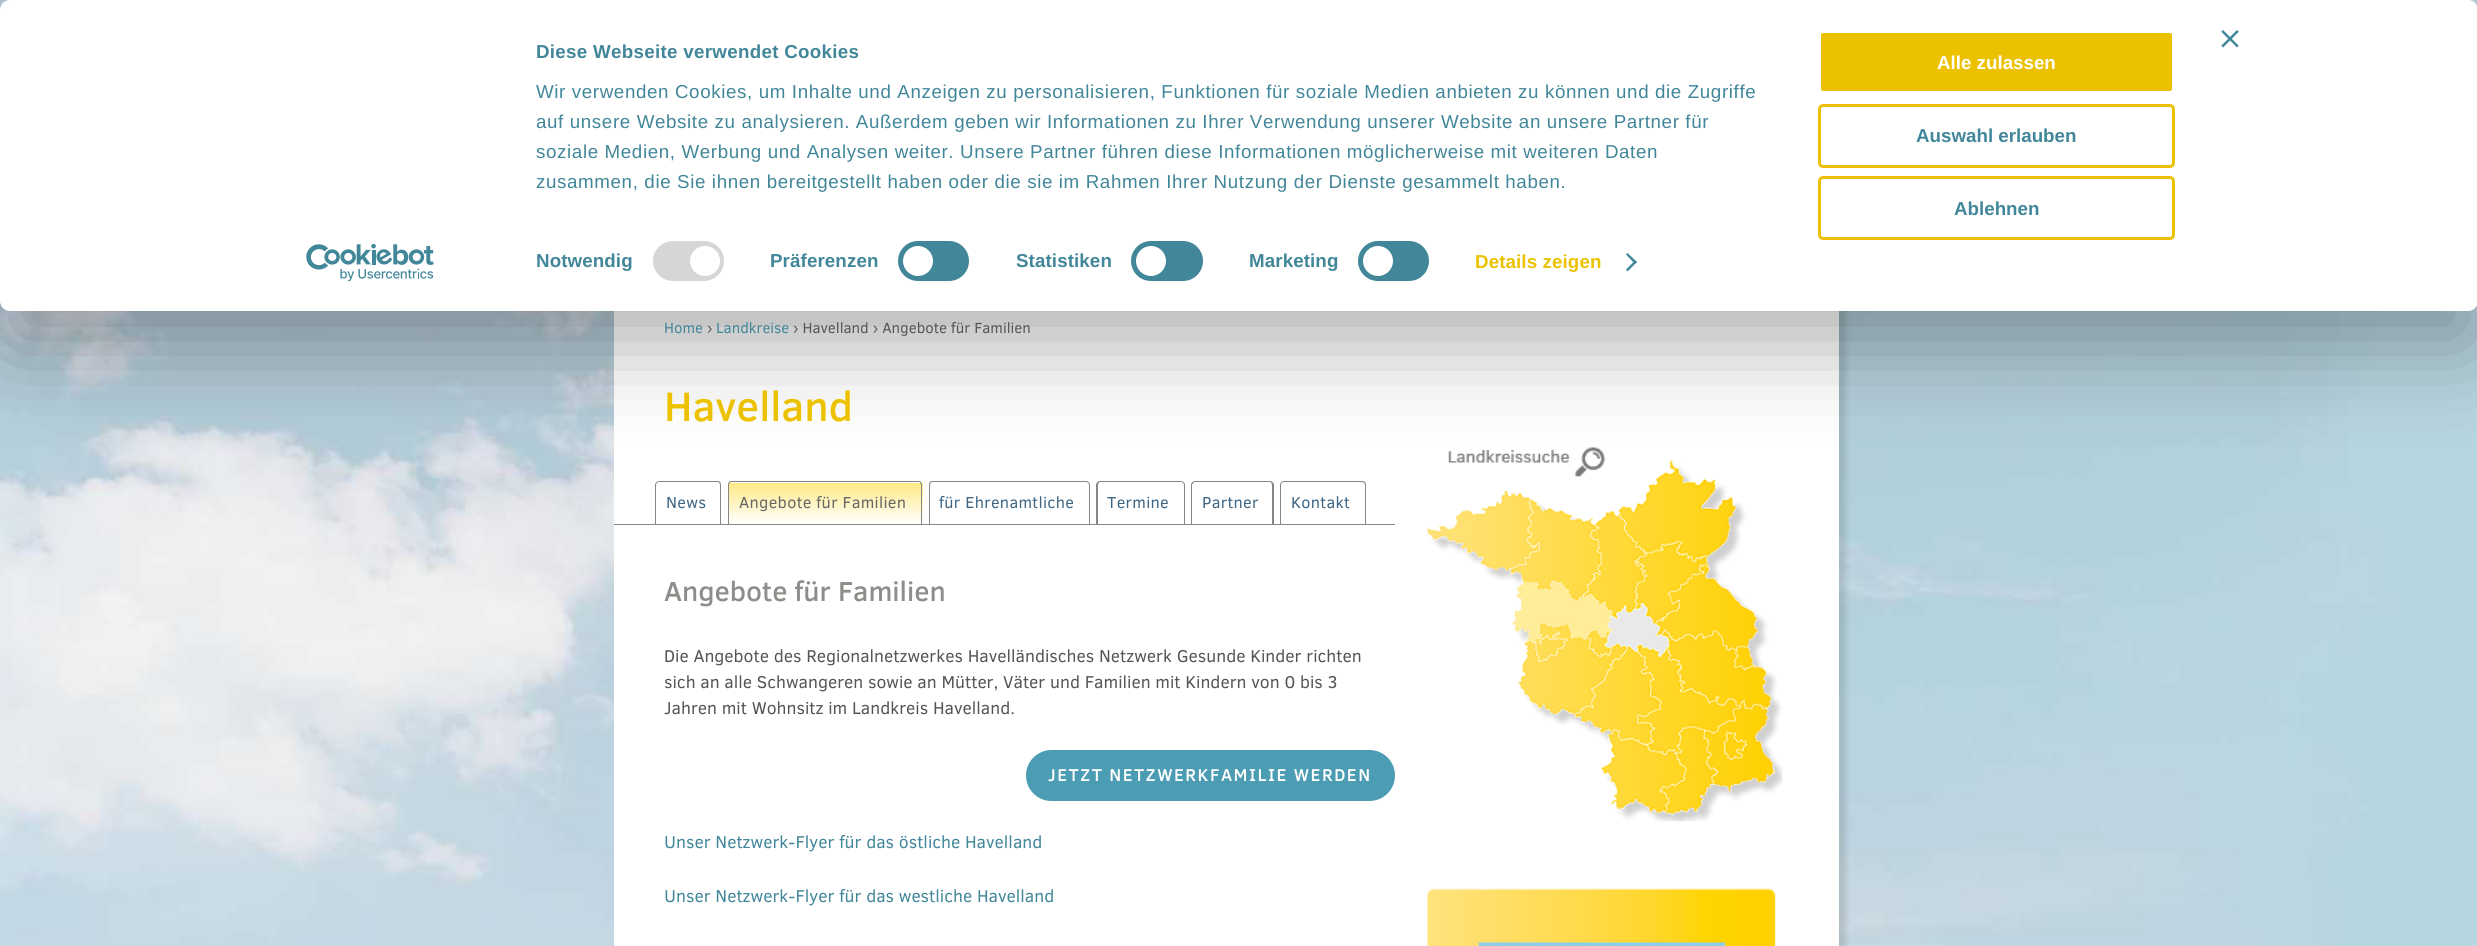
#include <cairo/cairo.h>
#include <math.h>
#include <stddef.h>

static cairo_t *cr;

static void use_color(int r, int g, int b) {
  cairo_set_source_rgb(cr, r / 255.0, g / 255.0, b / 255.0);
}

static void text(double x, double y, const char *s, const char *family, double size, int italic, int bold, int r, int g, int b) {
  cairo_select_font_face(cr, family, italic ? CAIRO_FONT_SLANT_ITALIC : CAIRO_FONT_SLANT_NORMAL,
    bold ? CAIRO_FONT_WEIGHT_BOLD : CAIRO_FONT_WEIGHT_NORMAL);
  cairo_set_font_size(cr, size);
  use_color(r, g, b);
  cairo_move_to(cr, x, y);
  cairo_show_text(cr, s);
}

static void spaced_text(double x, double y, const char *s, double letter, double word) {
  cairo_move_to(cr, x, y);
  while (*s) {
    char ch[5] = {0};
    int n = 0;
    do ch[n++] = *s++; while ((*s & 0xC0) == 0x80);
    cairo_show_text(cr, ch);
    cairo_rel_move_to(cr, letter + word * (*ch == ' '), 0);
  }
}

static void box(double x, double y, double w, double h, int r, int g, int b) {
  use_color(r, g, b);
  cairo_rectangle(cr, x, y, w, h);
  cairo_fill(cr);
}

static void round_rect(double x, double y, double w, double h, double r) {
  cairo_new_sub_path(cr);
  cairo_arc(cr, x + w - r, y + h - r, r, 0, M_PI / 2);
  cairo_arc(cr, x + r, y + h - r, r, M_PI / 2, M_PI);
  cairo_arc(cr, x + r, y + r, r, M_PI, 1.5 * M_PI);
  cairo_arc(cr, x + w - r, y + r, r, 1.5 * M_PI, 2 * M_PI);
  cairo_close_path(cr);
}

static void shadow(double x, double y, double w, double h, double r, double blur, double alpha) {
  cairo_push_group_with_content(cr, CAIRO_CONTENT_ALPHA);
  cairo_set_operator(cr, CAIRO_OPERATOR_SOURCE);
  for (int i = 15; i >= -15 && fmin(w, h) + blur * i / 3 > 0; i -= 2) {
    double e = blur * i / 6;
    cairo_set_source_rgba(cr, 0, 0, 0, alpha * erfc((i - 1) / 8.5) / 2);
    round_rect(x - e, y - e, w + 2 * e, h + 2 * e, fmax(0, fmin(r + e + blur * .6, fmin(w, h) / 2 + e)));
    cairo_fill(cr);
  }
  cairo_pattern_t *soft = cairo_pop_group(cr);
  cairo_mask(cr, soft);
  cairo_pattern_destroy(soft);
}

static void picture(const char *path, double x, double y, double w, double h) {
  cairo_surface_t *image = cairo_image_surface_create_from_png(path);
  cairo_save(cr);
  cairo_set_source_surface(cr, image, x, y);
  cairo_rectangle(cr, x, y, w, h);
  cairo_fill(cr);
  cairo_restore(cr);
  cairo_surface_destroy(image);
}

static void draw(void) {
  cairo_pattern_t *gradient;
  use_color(255, 255, 255);
  cairo_paint(cr);
  picture("img_01.png", 0, 0, 2477, 946);
  use_color(0, 0, 0);
  shadow(621, 310, 1225, 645, 0, 3, 0.12);
  box(614, 311, 1225, 635, 255, 255, 255);
  picture("img_04.png", 613, 481, 1, 44);
  use_color(134, 134, 133);
  cairo_set_fill_rule(cr, CAIRO_FILL_RULE_EVEN_ODD);
  cairo_new_path(cr);
  cairo_move_to(cr, 659, 481);
  cairo_line_to(cr, 718, 481);
  cairo_curve_to(cr, 720, 481, 721, 483, 721, 485);
  cairo_line_to(cr, 721, 524);
  cairo_line_to(cr, 655, 524);
  cairo_line_to(cr, 655, 485);
  cairo_curve_to(cr, 655, 483, 657, 481, 659, 481);
  cairo_close_path(cr);
  cairo_move_to(cr, 659, 482);
  cairo_line_to(cr, 718, 482);
  cairo_curve_to(cr, 719, 482, 720, 484, 720, 485);
  cairo_line_to(cr, 720, 524);
  cairo_line_to(cr, 656, 524);
  cairo_line_to(cr, 656, 485);
  cairo_curve_to(cr, 656, 484, 657, 482, 659, 482);
  cairo_close_path(cr);
  cairo_fill(cr);
  cairo_save(cr);
  cairo_set_fill_rule(cr, CAIRO_FILL_RULE_WINDING);
  cairo_new_path(cr);
  cairo_move_to(cr, 732, 481);
  cairo_line_to(cr, 919, 481);
  cairo_curve_to(cr, 921, 481, 923, 483, 923, 485);
  cairo_line_to(cr, 923, 524);
  cairo_line_to(cr, 728, 524);
  cairo_line_to(cr, 728, 485);
  cairo_curve_to(cr, 728, 483, 730, 481, 732, 481);
  cairo_close_path(cr);
  cairo_clip(cr);
  gradient = cairo_pattern_create_linear(825, 441, 825, 483);
  cairo_pattern_add_color_stop_rgba(gradient, 0, 1, 0.914, 0.522, 1);
  cairo_pattern_add_color_stop_rgba(gradient, 1, 1, 1, 1, 1);
  cairo_set_source(cr, gradient);
  cairo_pattern_destroy(gradient);
  cairo_rectangle(cr, 728, 481, 195, 2);
  cairo_fill(cr);
  cairo_restore(cr);
  gradient = cairo_pattern_create_linear(825, 483, 825, 524);
  cairo_pattern_add_color_stop_rgba(gradient, 0, 1, 0.914, 0.522, 1);
  cairo_pattern_add_color_stop_rgba(gradient, 1, 1, 1, 1, 1);
  cairo_set_source(cr, gradient);
  cairo_pattern_destroy(gradient);
  cairo_rectangle(cr, 728, 483, 195, 40);
  cairo_fill(cr);
  use_color(134, 134, 133);
  cairo_new_path(cr);
  cairo_move_to(cr, 731, 481);
  cairo_line_to(cr, 919, 481);
  cairo_curve_to(cr, 921, 481, 922, 483, 922, 485);
  cairo_line_to(cr, 922, 524);
  cairo_line_to(cr, 728, 524);
  cairo_line_to(cr, 728, 485);
  cairo_curve_to(cr, 728, 483, 729, 481, 731, 481);
  cairo_close_path(cr);
  cairo_move_to(cr, 731, 482);
  cairo_line_to(cr, 919, 482);
  cairo_curve_to(cr, 920, 482, 921, 484, 921, 485);
  cairo_line_to(cr, 921, 524);
  cairo_line_to(cr, 729, 524);
  cairo_line_to(cr, 729, 485);
  cairo_curve_to(cr, 729, 484, 730, 482, 731, 482);
  cairo_close_path(cr);
  cairo_fill(cr);
  cairo_new_path(cr);
  cairo_move_to(cr, 932, 481);
  cairo_line_to(cr, 1086, 481);
  cairo_curve_to(cr, 1088, 481, 1090, 483, 1090, 485);
  cairo_line_to(cr, 1090, 524);
  cairo_line_to(cr, 929, 524);
  cairo_line_to(cr, 929, 485);
  cairo_curve_to(cr, 929, 483, 930, 481, 932, 481);
  cairo_close_path(cr);
  cairo_move_to(cr, 932, 482);
  cairo_line_to(cr, 1086, 482);
  cairo_curve_to(cr, 1088, 482, 1089, 484, 1089, 485);
  cairo_line_to(cr, 1089, 524);
  cairo_line_to(cr, 930, 524);
  cairo_line_to(cr, 930, 485);
  cairo_curve_to(cr, 930, 484, 931, 482, 932, 482);
  cairo_close_path(cr);
  cairo_fill(cr);
  cairo_new_path(cr);
  cairo_move_to(cr, 1100, 481);
  cairo_line_to(cr, 1181, 481);
  cairo_curve_to(cr, 1183, 481, 1185, 483, 1185, 485);
  cairo_line_to(cr, 1185, 524);
  cairo_line_to(cr, 1096, 524);
  cairo_line_to(cr, 1096, 485);
  cairo_curve_to(cr, 1096, 483, 1098, 481, 1100, 481);
  cairo_close_path(cr);
  cairo_move_to(cr, 1100, 482);
  cairo_line_to(cr, 1181, 482);
  cairo_curve_to(cr, 1183, 482, 1184, 484, 1184, 485);
  cairo_line_to(cr, 1184, 524);
  cairo_line_to(cr, 1098, 524);
  cairo_line_to(cr, 1098, 485);
  cairo_curve_to(cr, 1098, 484, 1099, 482, 1100, 482);
  cairo_close_path(cr);
  cairo_fill(cr);
  cairo_new_path(cr);
  cairo_move_to(cr, 1195, 481);
  cairo_line_to(cr, 1270, 481);
  cairo_curve_to(cr, 1272, 481, 1274, 483, 1274, 485);
  cairo_line_to(cr, 1274, 524);
  cairo_line_to(cr, 1191, 524);
  cairo_line_to(cr, 1191, 485);
  cairo_curve_to(cr, 1191, 483, 1193, 481, 1195, 481);
  cairo_close_path(cr);
  cairo_move_to(cr, 1195, 482);
  cairo_line_to(cr, 1270, 482);
  cairo_curve_to(cr, 1271, 482, 1272, 484, 1272, 485);
  cairo_line_to(cr, 1272, 524);
  cairo_line_to(cr, 1192, 524);
  cairo_line_to(cr, 1192, 485);
  cairo_curve_to(cr, 1192, 484, 1194, 482, 1195, 482);
  cairo_close_path(cr);
  cairo_fill(cr);
  cairo_new_path(cr);
  cairo_move_to(cr, 1284, 481);
  cairo_line_to(cr, 1362, 481);
  cairo_curve_to(cr, 1365, 481, 1366, 483, 1366, 485);
  cairo_line_to(cr, 1366, 524);
  cairo_line_to(cr, 1280, 524);
  cairo_line_to(cr, 1280, 485);
  cairo_curve_to(cr, 1280, 483, 1282, 481, 1284, 481);
  cairo_close_path(cr);
  cairo_move_to(cr, 1284, 482);
  cairo_line_to(cr, 1362, 482);
  cairo_curve_to(cr, 1364, 482, 1365, 484, 1365, 485);
  cairo_line_to(cr, 1365, 524);
  cairo_line_to(cr, 1281, 524);
  cairo_line_to(cr, 1281, 485);
  cairo_curve_to(cr, 1281, 484, 1282, 482, 1284, 482);
  cairo_close_path(cr);
  cairo_fill(cr);
  picture("img_05.png", 1448, 447, 158, 30);
  picture("img_06.png", 1426, 460, 357, 362);
  use_color(0, 0, 0);
  shadow(0, 38, 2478, 311, 10, 44, 0.3);
  use_color(255, 255, 255);
  round_rect(0, 0, 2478, 311, 10);
  cairo_fill(cr);
  picture("img_02.png", 2221, 30, 18, 18);
  use_color(214, 214, 214);
  round_rect(653, 241, 71, 40, 20);
  cairo_fill(cr);
  use_color(255, 255, 255);
  cairo_arc(cr, 705, 261, 15, 0, 2 * M_PI);
  cairo_fill(cr);
  use_color(65, 134, 153);
  round_rect(898, 241, 71, 40, 20);
  cairo_fill(cr);
  use_color(255, 255, 255);
  cairo_arc(cr, 918, 261, 15, 0, 2 * M_PI);
  cairo_fill(cr);
  use_color(65, 134, 153);
  round_rect(1131, 241, 72, 40, 20);
  cairo_fill(cr);
  use_color(255, 255, 255);
  cairo_arc(cr, 1151, 261, 15, 0, 2 * M_PI);
  cairo_fill(cr);
  use_color(65, 134, 153);
  round_rect(1358, 241, 71, 40, 20);
  cairo_fill(cr);
  use_color(255, 255, 255);
  cairo_arc(cr, 1378, 261, 15, 0, 2 * M_PI);
  cairo_fill(cr);
  use_color(65, 134, 153);
  cairo_set_fill_rule(cr, CAIRO_FILL_RULE_WINDING);
  cairo_new_path(cr);
  cairo_move_to(cr, 1627.5, 253);
  cairo_line_to(cr, 1637, 262);
  cairo_line_to(cr, 1635, 264);
  cairo_line_to(cr, 1626, 254.5);
  cairo_close_path(cr);
  cairo_fill(cr);
  cairo_new_path(cr);
  cairo_move_to(cr, 1635, 260.5);
  cairo_line_to(cr, 1637, 262);
  cairo_line_to(cr, 1627.5, 271.5);
  cairo_line_to(cr, 1626, 269.5);
  cairo_close_path(cr);
  cairo_fill(cr);
  use_color(236, 194, 0);
  round_rect(1819.5, 31.5, 354, 61, 3.5);
  cairo_fill_preserve(cr);
  use_color(255, 255, 255);
  cairo_set_line_width(cr, 3);
  cairo_stroke(cr);
  round_rect(1819.5, 105.5, 354, 61, 3.5);
  use_color(236, 194, 0);
  cairo_stroke(cr);
  round_rect(1819.5, 177.5, 354, 61, 3.5);
  cairo_stroke(cr);
  picture("img_03.png", 306, 244, 128, 37);
  box(614, 524, 781, 1, 134, 134, 133);
  gradient = cairo_pattern_create_linear(823, 484, 823, 524);
  cairo_pattern_add_color_stop_rgba(gradient, 0, 1, 0.914, 0.522, 1);
  cairo_pattern_add_color_stop_rgba(gradient, 1, 1, 1, 1, 1);
  cairo_set_source(cr, gradient);
  cairo_pattern_destroy(gradient);
  cairo_rectangle(cr, 729, 484, 1, 1);
  cairo_fill(cr);
  use_color(76, 156, 179);
  round_rect(1026, 750, 369, 51, 25.5);
  cairo_fill(cr);
  picture("img_07.png", 1427, 888, 349, 58);
  picture("img_08.png", 1478, 942, 247, 4);
  cairo_select_font_face(cr, "Liberation Sans", CAIRO_FONT_SLANT_NORMAL, CAIRO_FONT_WEIGHT_BOLD);
  cairo_set_font_size(cr, 18.75);
  use_color(65, 134, 153);
  spaced_text(536, 58, "Diese Webseite verwendet Cookies", 0.3, 0);
  cairo_select_font_face(cr, "Liberation Sans", CAIRO_FONT_SLANT_NORMAL, CAIRO_FONT_WEIGHT_NORMAL);
  spaced_text(536, 98, "Wir verwenden Cookies, um Inhalte und Anzeigen zu personalisieren, Funktionen für soziale Medien anbieten zu können und die Zugriffe", 0.62, 0);
  spaced_text(536, 128, "auf unsere Website zu analysieren. Außerdem geben wir Informationen zu Ihrer Verwendung unserer Website an unsere Partner für", 0.62, 0);
  spaced_text(536, 158, "soziale Medien, Werbung und Analysen weiter. Unsere Partner führen diese Informationen möglicherweise mit weiteren Daten", 0.62, 0);
  spaced_text(536, 188, "zusammen, die Sie ihnen bereitgestellt haben oder die sie im Rahmen Ihrer Nutzung der Dienste gesammelt haben.", 0.62, 0);
  cairo_select_font_face(cr, "Liberation Sans", CAIRO_FONT_SLANT_NORMAL, CAIRO_FONT_WEIGHT_BOLD);
  spaced_text(536, 267, "Notwendig", 0.1, 0);
  spaced_text(770, 267, "Präferenzen", 0.1, 0);
  spaced_text(1016, 267, "Statistiken", 0.1, 0);
  spaced_text(1249, 267, "Marketing", 0.1, 0);
  use_color(236, 194, 0);
  spaced_text(1475, 268, "Details zeigen", 0.1, 0);
  text(1937, 69, "Alle zulassen", "Liberation Sans", 18.75, 0, 1, 255, 255, 255);
  text(1916, 142, "Auswahl erlauben", "Liberation Sans", 18.75, 0, 1, 65, 134, 153);
  text(1954, 215, "Ablehnen", "Liberation Sans", 18.75, 0, 1, 65, 134, 153);
  text(664, 333, "Home", "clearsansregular", 15, 0, 0, 65, 134, 153);
  text(707, 333, "›", "clearsansregular", 15, 0, 0, 85, 85, 85);
  text(716, 333, "Landkreise", "clearsansregular", 15, 0, 0, 65, 134, 153);
  text(793, 333, "› Havelland › Angebote für Familien", "clearsansregular", 15, 0, 0, 85, 85, 85);
  text(664, 421, "Havelland", "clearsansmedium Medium", 42, 0, 0, 236, 194, 0);
  cairo_select_font_face(cr, "clearsansregular", CAIRO_FONT_SLANT_NORMAL, CAIRO_FONT_WEIGHT_NORMAL);
  cairo_set_font_size(cr, 16.25);
  use_color(62, 101, 131);
  spaced_text(666, 508, "News", 0.3, 0);
  use_color(102, 102, 102);
  spaced_text(739, 508, "Angebote für Familien", 0.3, 0);
  use_color(62, 101, 131);
  spaced_text(939, 508, "für Ehrenamtliche", 0.3, 0);
  spaced_text(1107, 508, "Termine", 0.3, 0);
  spaced_text(1202, 508, "Partner", 0.3, 0);
  spaced_text(1291, 508, "Kontakt", 0.3, 0);
  text(664, 601, "Angebote für Familien", "clearsansmedium Medium", 28, 0, 0, 142, 141, 138);
  text(664, 662, "Die Angebote des Regionalnetzwerkes Havelländisches Netzwerk Gesunde Kinder richten", "clearsansregular", 17.5, 0, 0, 85, 85, 85);
  text(664, 688, "sich an alle Schwangeren sowie an Mütter, Väter und Familien mit Kindern von 0 bis 3", "clearsansregular", 17.5, 0, 0, 85, 85, 85);
  text(664, 714, "Jahren mit Wohnsitz im Landkreis Havelland.", "clearsansregular", 17.5, 0, 0, 85, 85, 85);
  cairo_select_font_face(cr, "clearsansmedium Medium", CAIRO_FONT_SLANT_NORMAL, CAIRO_FONT_WEIGHT_NORMAL);
  use_color(255, 255, 255);
  spaced_text(1048, 781, "JETZT NETZWERKFAMILIE WERDEN", 1.5, 0);
  text(664, 848, "Unser Netzwerk-Flyer für das östliche Havelland", "clearsansregular", 17.5, 0, 0, 65, 134, 153);
  text(664, 902, "Unser Netzwerk-Flyer für das westliche Havelland", "clearsansregular", 17.5, 0, 0, 65, 134, 153);
}

int main(void) {
  cairo_surface_t *surface = cairo_image_surface_create(CAIRO_FORMAT_RGB24, 2477, 946);
  cr = cairo_create(surface);
  cairo_font_options_t *options = cairo_font_options_create();
  cairo_font_options_set_hint_metrics(options, CAIRO_HINT_METRICS_OFF);
  cairo_font_options_set_hint_style(options, CAIRO_HINT_STYLE_NONE);
  cairo_set_font_options(cr, options);
  cairo_set_miter_limit(cr, 4);
  draw();
  cairo_surface_write_to_png(surface, "out.png");
  cairo_font_options_destroy(options);
  cairo_destroy(cr);
  cairo_surface_destroy(surface);
  return 0;
}
